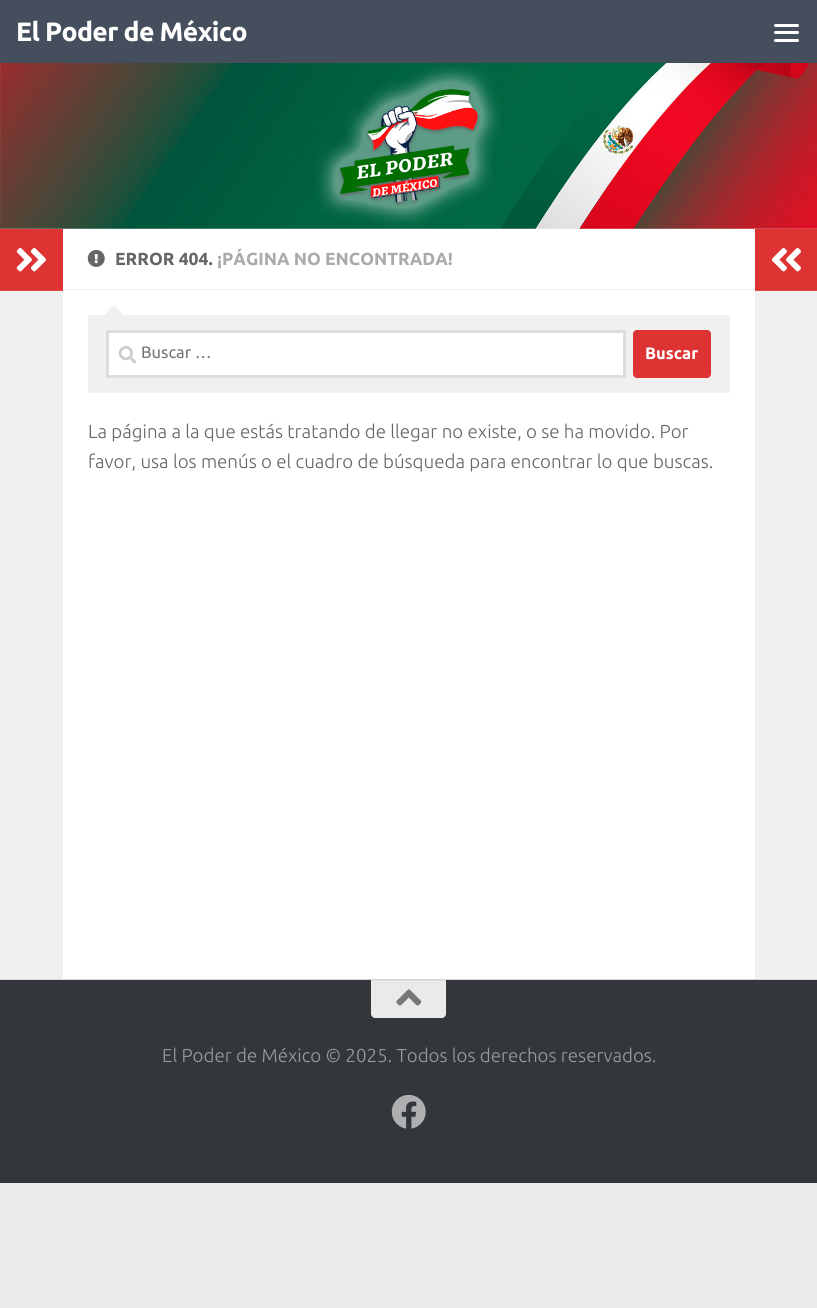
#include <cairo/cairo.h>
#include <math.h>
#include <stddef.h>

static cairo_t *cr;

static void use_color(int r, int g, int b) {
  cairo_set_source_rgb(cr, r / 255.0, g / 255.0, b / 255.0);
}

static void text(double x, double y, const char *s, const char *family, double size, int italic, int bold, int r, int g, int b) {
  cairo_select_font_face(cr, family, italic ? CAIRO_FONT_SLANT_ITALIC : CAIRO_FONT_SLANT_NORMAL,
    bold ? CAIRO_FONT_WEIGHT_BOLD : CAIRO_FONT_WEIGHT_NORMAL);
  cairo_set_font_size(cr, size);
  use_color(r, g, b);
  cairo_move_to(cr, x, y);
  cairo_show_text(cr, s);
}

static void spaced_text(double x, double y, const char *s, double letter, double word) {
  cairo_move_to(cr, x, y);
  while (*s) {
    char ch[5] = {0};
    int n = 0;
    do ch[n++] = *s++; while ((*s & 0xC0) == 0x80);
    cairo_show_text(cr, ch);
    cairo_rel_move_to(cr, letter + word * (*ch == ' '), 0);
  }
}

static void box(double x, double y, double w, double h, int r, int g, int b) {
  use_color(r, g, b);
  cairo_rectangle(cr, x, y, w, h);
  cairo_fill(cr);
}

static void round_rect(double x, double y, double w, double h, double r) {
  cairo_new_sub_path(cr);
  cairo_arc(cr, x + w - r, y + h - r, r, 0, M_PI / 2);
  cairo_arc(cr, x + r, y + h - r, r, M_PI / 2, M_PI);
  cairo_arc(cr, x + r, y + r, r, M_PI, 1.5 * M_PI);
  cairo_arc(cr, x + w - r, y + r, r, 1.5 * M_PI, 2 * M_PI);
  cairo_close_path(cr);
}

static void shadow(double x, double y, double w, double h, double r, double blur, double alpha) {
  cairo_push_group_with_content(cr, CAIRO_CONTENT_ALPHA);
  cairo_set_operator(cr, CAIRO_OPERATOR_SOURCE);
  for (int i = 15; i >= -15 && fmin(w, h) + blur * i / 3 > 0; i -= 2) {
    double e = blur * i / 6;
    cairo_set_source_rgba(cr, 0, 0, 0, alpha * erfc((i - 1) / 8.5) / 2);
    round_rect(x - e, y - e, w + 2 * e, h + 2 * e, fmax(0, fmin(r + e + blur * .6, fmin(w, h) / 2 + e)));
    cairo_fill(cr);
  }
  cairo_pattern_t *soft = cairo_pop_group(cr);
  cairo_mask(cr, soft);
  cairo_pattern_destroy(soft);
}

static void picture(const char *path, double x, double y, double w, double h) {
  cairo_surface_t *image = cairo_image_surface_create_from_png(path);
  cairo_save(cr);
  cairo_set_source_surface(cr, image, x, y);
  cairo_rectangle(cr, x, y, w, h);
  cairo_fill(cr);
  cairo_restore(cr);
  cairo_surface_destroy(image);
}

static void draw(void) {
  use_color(234, 234, 234);
  cairo_paint(cr);
  box(0, 0, 817, 63, 69, 78, 92);
  use_color(255, 255, 255);
  round_rect(774, 24, 25, 3, 1.5);
  cairo_fill(cr);
  round_rect(774, 31, 25, 3, 1.5);
  cairo_fill(cr);
  round_rect(774, 39, 25, 3, 1.5);
  cairo_fill(cr);
  use_color(0, 0, 0);
  shadow(0, 230, 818, 750, 0, 0.5, 0.1);
  picture("img_01.png", 0, 63, 817, 166);
  box(63, 229, 692, 750, 255, 255, 255);
  box(0, 291, 63, 688, 240, 240, 240);
  box(0, 229, 63, 61, 221, 51, 51);
  box(0, 290, 63, 1, 224, 71, 71);
  picture("img_02.png", 16, 248, 30, 24);
  box(63, 289, 692, 1, 238, 238, 238);
  picture("img_03.png", 87, 250, 18, 17);
  box(88, 315, 642, 78, 240, 240, 240);
  use_color(241, 241, 241);
  cairo_new_path(cr);
  cairo_move_to(cr, 124, 315);
  cairo_line_to(cr, 104, 315);
  cairo_line_to(cr, 114, 305);
  cairo_close_path(cr);
  cairo_fill(cr);
  use_color(255, 255, 255);
  cairo_rectangle(cr, 107.5, 331.5, 517, 45);
  cairo_fill_preserve(cr);
  use_color(221, 221, 221);
  cairo_set_line_width(cr, 3);
  cairo_stroke(cr);
  picture("img_04.png", 118, 346, 19, 18);
  use_color(221, 51, 51);
  round_rect(633, 330, 78, 48, 4);
  cairo_fill(cr);
  box(755, 229, 62, 61, 221, 51, 51);
  box(755, 290, 62, 1, 224, 71, 71);
  picture("img_05.png", 771, 248, 30, 24);
  box(755, 291, 62, 688, 240, 240, 240);
  box(0, 980, 817, 203, 51, 54, 59);
  use_color(234, 234, 234);
  cairo_new_path(cr);
  cairo_move_to(cr, 371, 980);
  cairo_line_to(cr, 446, 980);
  cairo_line_to(cr, 446, 1014);
  cairo_curve_to(cr, 446, 1016, 444, 1018, 442, 1018);
  cairo_line_to(cr, 375, 1018);
  cairo_curve_to(cr, 373, 1018, 371, 1016, 371, 1014);
  cairo_close_path(cr);
  cairo_fill(cr);
  box(371, 980, 75, 1, 222, 222, 222);
  picture("img_06.png", 396, 989, 26, 17);
  picture("img_07.png", 391, 1094, 35, 35);
  cairo_select_font_face(cr, "Ubuntu", CAIRO_FONT_SLANT_NORMAL, CAIRO_FONT_WEIGHT_BOLD);
  cairo_set_font_size(cr, 26.5);
  use_color(255, 255, 255);
  spaced_text(16, 41, "El Poder de México", -0.6, 0);
  text(115, 265, "ERROR 404.", "Ubuntu", 17.5, 0, 1, 102, 102, 102);
  text(217, 265, "¡PÁGINA NO ENCONTRADA!", "Ubuntu", 17.5, 0, 1, 170, 170, 170);
  text(141, 358, "Buscar …", "Ubuntu", 16.5, 0, 0, 117, 117, 117);
  text(645, 359, "Buscar", "Ubuntu", 16.5, 0, 1, 255, 255, 255);
  text(88, 438, "La página a la que estás tratando de llegar no existe, o se ha movido. Por", "Ubuntu Light", 18.75, 0, 0, 102, 102, 102);
  text(88, 468, "favor, usa los menús o el cuadro de búsqueda para encontrar lo que buscas.", "Ubuntu Light", 18.75, 0, 0, 102, 102, 102);
  text(162, 1062, "El Poder de México © 2025. Todos los derechos reservados.", "Ubuntu Light", 18.75, 0, 0, 153, 155, 157);
}

int main(void) {
  cairo_surface_t *surface = cairo_image_surface_create(CAIRO_FORMAT_RGB24, 817, 1308);
  cr = cairo_create(surface);
  cairo_font_options_t *options = cairo_font_options_create();
  cairo_font_options_set_hint_metrics(options, CAIRO_HINT_METRICS_OFF);
  cairo_font_options_set_hint_style(options, CAIRO_HINT_STYLE_NONE);
  cairo_set_font_options(cr, options);
  cairo_set_miter_limit(cr, 4);
  draw();
  cairo_surface_write_to_png(surface, "out.png");
  cairo_font_options_destroy(options);
  cairo_destroy(cr);
  cairo_surface_destroy(surface);
  return 0;
}
